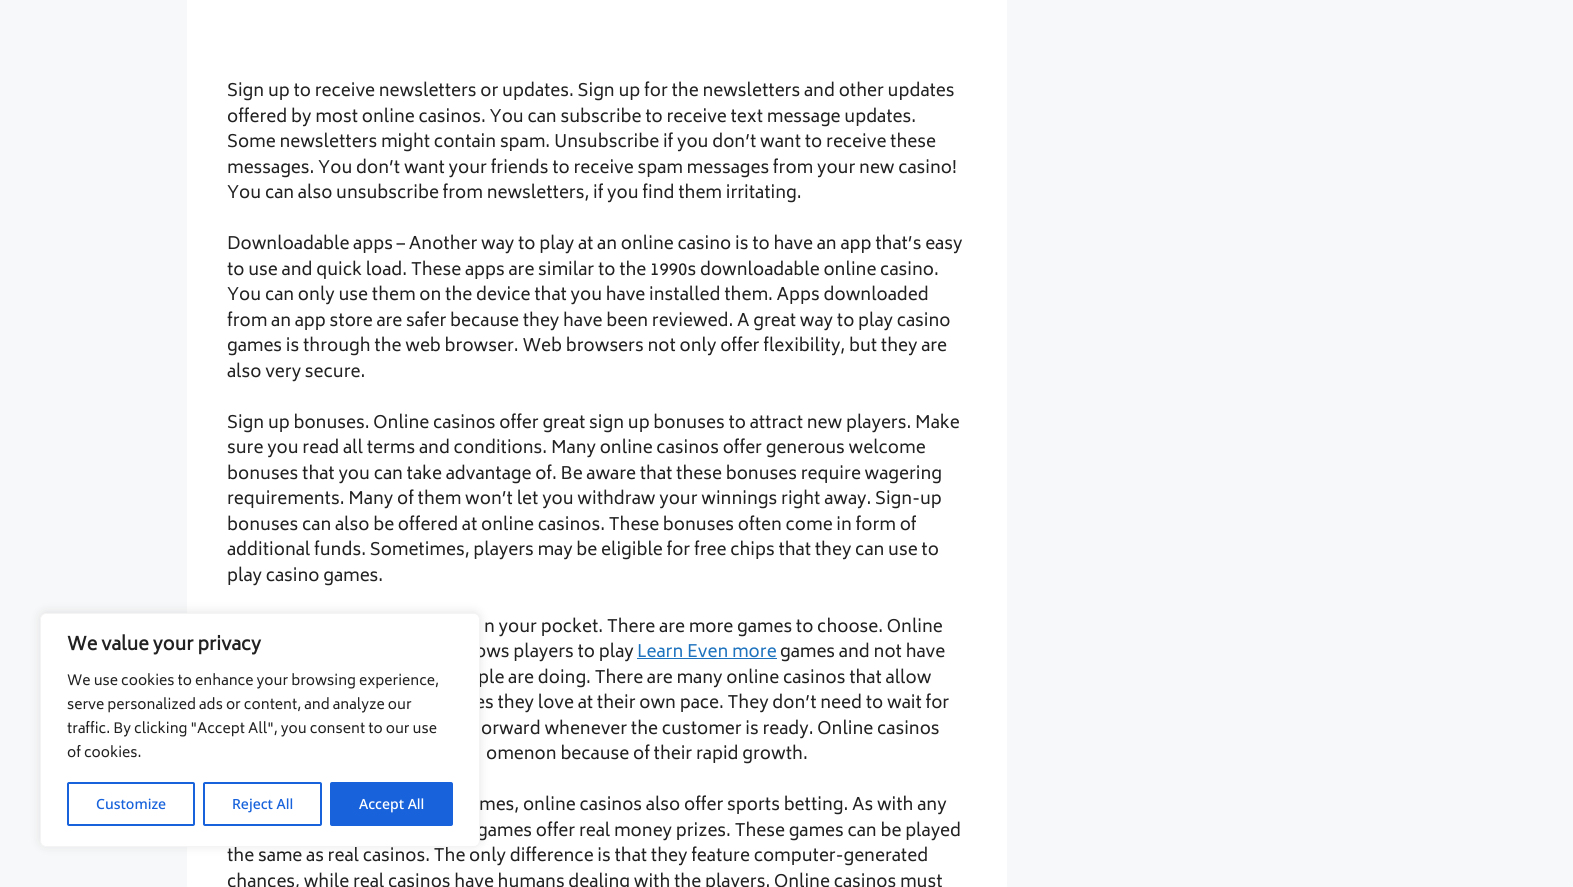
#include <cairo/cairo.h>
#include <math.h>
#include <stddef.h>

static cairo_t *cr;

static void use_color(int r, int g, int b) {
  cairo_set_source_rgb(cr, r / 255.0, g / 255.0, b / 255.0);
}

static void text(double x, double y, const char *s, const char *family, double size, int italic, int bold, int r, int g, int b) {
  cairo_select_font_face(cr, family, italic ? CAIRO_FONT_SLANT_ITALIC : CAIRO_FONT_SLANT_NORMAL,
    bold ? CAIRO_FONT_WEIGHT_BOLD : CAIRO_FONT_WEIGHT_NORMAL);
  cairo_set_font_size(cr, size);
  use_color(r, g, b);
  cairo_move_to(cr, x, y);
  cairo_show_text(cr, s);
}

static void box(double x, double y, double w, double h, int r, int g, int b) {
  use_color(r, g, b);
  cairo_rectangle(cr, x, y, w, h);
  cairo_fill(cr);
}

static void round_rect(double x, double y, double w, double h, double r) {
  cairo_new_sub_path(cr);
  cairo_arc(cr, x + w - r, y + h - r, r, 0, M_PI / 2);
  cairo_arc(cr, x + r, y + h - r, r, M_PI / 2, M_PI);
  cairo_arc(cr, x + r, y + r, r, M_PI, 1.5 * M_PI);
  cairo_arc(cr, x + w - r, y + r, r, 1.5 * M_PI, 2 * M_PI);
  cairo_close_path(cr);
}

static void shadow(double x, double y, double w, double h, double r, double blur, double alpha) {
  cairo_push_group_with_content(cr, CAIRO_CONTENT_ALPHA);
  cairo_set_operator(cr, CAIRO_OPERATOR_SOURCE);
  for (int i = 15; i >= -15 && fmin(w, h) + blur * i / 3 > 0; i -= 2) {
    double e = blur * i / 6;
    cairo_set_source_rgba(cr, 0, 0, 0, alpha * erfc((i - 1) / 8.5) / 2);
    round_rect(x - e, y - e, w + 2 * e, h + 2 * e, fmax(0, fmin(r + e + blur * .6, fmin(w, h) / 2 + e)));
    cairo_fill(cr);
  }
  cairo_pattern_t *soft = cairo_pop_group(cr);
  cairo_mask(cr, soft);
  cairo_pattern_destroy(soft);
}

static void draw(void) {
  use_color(247, 248, 249);
  cairo_paint(cr);
  box(187, 0, 820, 887, 255, 255, 255);
  box(637, 658, 140, 1, 30, 115, 190);
  use_color(172, 171, 171);
  shadow(40, 612, 440, 234, 6, 5, 0.3);
  text(227, 96, "Sign up to receive newsletters or updates. Sign up for the newsletters and other updates", "Biryani", 17, 0, 0, 34, 34, 34);
  text(227, 122, "offered by most online casinos. You can subscribe to receive text message updates.", "Biryani", 17, 0, 0, 34, 34, 34);
  text(227, 147, "Some newsletters might contain spam. Unsubscribe if you don’t want to receive these", "Biryani", 17, 0, 0, 34, 34, 34);
  text(227, 173, "messages. You don’t want your friends to receive spam messages from your new casino!", "Biryani", 17, 0, 0, 34, 34, 34);
  text(227, 198, "You can also unsubscribe from newsletters, if you find them irritating.", "Biryani", 17, 0, 0, 34, 34, 34);
  text(227, 249, "Downloadable apps – Another way to play at an online casino is to have an app that’s easy", "Biryani", 17, 0, 0, 34, 34, 34);
  text(227, 275, "to use and quick load. These apps are similar to the 1990s downloadable online casino.", "Biryani", 17, 0, 0, 34, 34, 34);
  text(227, 300, "You can only use them on the device that you have installed them. Apps downloaded", "Biryani", 17, 0, 0, 34, 34, 34);
  text(227, 326, "from an app store are safer because they have been reviewed. A great way to play casino", "Biryani", 17, 0, 0, 34, 34, 34);
  text(227, 351, "games is through the web browser. Web browsers not only offer flexibility, but they are", "Biryani", 17, 0, 0, 34, 34, 34);
  text(227, 377, "also very secure.", "Biryani", 17, 0, 0, 34, 34, 34);
  text(227, 428, "Sign up bonuses. Online casinos offer great sign up bonuses to attract new players. Make", "Biryani", 17, 0, 0, 34, 34, 34);
  text(227, 453, "sure you read all terms and conditions. Many online casinos offer generous welcome", "Biryani", 17, 0, 0, 34, 34, 34);
  text(227, 479, "bonuses that you can take advantage of. Be aware that these bonuses require wagering", "Biryani", 17, 0, 0, 34, 34, 34);
  text(227, 504, "requirements. Many of them won’t let you withdraw your winnings right away. Sign-up", "Biryani", 17, 0, 0, 34, 34, 34);
  text(227, 530, "bonuses can also be offered at online casinos. These bonuses often come in form of", "Biryani", 17, 0, 0, 34, 34, 34);
  text(227, 555, "additional funds. Sometimes, players may be eligible for free chips that they can use to", "Biryani", 17, 0, 0, 34, 34, 34);
  text(227, 581, "play casino games.", "Biryani", 17, 0, 0, 34, 34, 34);
  text(484, 632, "n your pocket. There are more games to choose. Online", "Biryani", 17, 0, 0, 34, 34, 34);
  text(475, 657, "ows players to play", "Biryani", 17, 0, 0, 34, 34, 34);
  text(637, 657, "Learn Even more", "Biryani", 17, 0, 0, 30, 115, 190);
  text(780, 657, "games and not have", "Biryani", 17, 0, 0, 34, 34, 34);
  text(478, 683, "ple are doing. There are many online casinos that allow", "Biryani", 17, 0, 0, 34, 34, 34);
  text(475, 708, "es they love at their own pace. They don’t need to wait for", "Biryani", 17, 0, 0, 34, 34, 34);
  text(481, 734, "orward whenever the customer is ready. Online casinos", "Biryani", 17, 0, 0, 34, 34, 34);
  text(486, 759, "omenon because of their rapid growth.", "Biryani", 17, 0, 0, 34, 34, 34);
  text(479, 810, "mes, online casinos also offer sports betting. As with any", "Biryani", 17, 0, 0, 34, 34, 34);
  text(477, 836, "games offer real money prizes. These games can be played", "Biryani", 17, 0, 0, 34, 34, 34);
  text(227, 861, "the same as real casinos. The only difference is that they feature computer-generated", "Biryani", 17, 0, 0, 34, 34, 34);
  text(227, 887, "chances, while real casinos have humans dealing with the players. Online casinos must", "Biryani", 17, 0, 0, 34, 34, 34);
  use_color(255, 255, 255);
  round_rect(40.5, 613.5, 439, 233, 5.5);
  cairo_fill_preserve(cr);
  use_color(244, 244, 244);
  cairo_set_line_width(cr, 1);
  cairo_stroke(cr);
  text(67, 650, "We value your privacy", "Biryani", 18, 0, 1, 34, 34, 34);
  text(67, 685, "We use cookies to enhance your browsing experience,", "Biryani", 14, 0, 0, 34, 34, 34);
  text(67, 709, "serve personalized ads or content, and analyze our", "Biryani", 14, 0, 0, 34, 34, 34);
  text(67, 733, "traffic. By clicking \"Accept All\", you consent to our use", "Biryani", 14, 0, 0, 34, 34, 34);
  text(67, 757, "of cookies.", "Biryani", 14, 0, 0, 34, 34, 34);
  round_rect(68, 783, 126, 42, 1);
  use_color(24, 99, 220);
  cairo_set_line_width(cr, 2);
  cairo_stroke(cr);
  text(96, 809, "Customize", "Noto Sans Medium", 14, 0, 0, 24, 99, 220);
  round_rect(204, 783, 117, 42, 1);
  cairo_stroke(cr);
  text(232, 809, "Reject All", "Noto Sans Medium", 14, 0, 0, 24, 99, 220);
  round_rect(331, 783, 121, 42, 1);
  cairo_fill_preserve(cr);
  cairo_stroke(cr);
  text(359, 809, "Accept All", "Noto Sans Medium", 14, 0, 0, 255, 255, 255);
}

int main(void) {
  cairo_surface_t *surface = cairo_image_surface_create(CAIRO_FORMAT_RGB24, 1573, 887);
  cr = cairo_create(surface);
  cairo_font_options_t *options = cairo_font_options_create();
  cairo_font_options_set_hint_metrics(options, CAIRO_HINT_METRICS_OFF);
  cairo_font_options_set_hint_style(options, CAIRO_HINT_STYLE_NONE);
  cairo_set_font_options(cr, options);
  cairo_set_miter_limit(cr, 4);
  draw();
  cairo_surface_write_to_png(surface, "out.png");
  cairo_font_options_destroy(options);
  cairo_destroy(cr);
  cairo_surface_destroy(surface);
  return 0;
}
